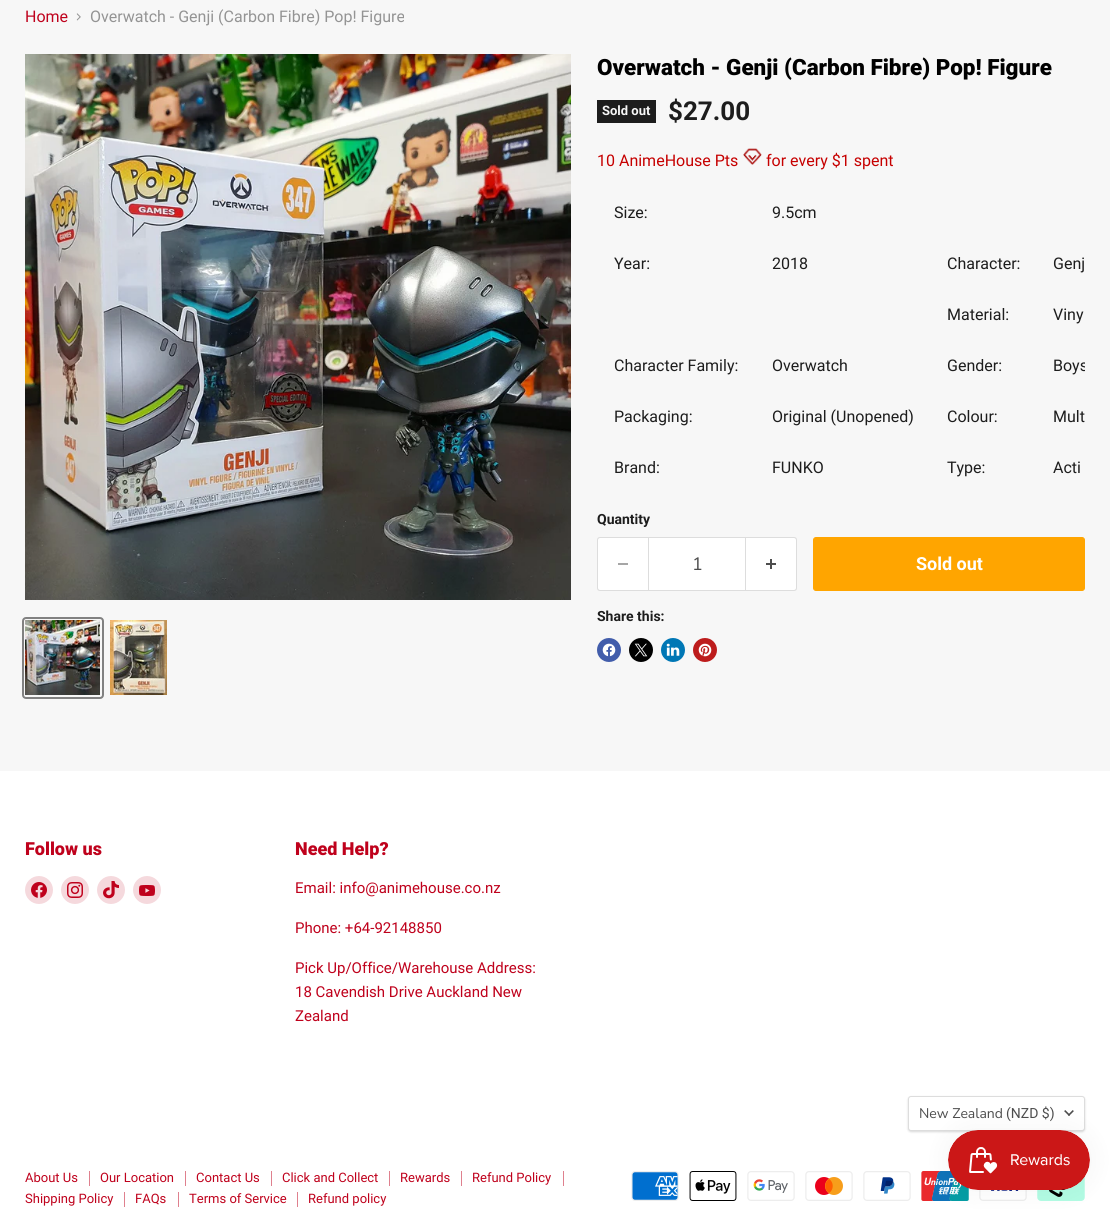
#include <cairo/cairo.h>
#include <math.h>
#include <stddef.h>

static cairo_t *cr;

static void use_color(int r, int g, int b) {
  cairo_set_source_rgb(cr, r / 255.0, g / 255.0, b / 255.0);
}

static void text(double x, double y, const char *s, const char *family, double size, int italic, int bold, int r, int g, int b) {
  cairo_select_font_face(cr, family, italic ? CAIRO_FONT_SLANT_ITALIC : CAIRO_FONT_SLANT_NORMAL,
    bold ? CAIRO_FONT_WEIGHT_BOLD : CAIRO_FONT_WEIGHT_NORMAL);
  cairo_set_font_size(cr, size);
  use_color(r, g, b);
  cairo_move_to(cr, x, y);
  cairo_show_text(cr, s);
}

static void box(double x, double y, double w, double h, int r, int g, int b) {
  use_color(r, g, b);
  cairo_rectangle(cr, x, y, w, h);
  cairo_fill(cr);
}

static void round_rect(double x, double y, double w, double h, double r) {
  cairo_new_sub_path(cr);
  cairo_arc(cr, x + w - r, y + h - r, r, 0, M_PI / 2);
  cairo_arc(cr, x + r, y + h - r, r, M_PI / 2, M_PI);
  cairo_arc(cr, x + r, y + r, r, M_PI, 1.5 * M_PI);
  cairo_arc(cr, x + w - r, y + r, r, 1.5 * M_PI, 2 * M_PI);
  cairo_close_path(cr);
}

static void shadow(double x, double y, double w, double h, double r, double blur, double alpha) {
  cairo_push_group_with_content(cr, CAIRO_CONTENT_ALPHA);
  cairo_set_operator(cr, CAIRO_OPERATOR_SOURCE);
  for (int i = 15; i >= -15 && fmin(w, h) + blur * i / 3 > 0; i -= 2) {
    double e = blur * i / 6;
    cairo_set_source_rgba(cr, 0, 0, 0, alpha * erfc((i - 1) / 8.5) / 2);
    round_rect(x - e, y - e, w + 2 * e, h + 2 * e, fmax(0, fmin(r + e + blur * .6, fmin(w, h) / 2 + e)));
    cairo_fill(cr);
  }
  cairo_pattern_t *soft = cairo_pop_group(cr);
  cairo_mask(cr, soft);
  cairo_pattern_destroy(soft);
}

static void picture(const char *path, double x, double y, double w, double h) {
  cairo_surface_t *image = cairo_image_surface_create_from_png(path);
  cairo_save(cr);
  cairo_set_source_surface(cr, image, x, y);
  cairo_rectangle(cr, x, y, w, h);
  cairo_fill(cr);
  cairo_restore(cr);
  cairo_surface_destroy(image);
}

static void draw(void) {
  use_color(247, 247, 247);
  cairo_paint(cr);
  picture("img_01.png", 76, 13, 5, 8);
  picture("img_02.png", 25, 54, 546, 546);
  round_rect(23, 618, 80, 80, 3);
  use_color(129, 129, 129);
  cairo_stroke(cr);
  picture("img_03.png", 25, 620, 75, 75);
  picture("img_04.png", 110, 620, 57, 75);
  box(597, 100, 59, 23, 29, 29, 29);
  picture("img_05.png", 743, 148, 19, 17);
  use_color(255, 255, 255);
  cairo_new_path(cr);
  cairo_move_to(cr, 600, 537);
  cairo_line_to(cr, 648, 537);
  cairo_line_to(cr, 648, 591);
  cairo_line_to(cr, 600, 591);
  cairo_curve_to(cr, 598.5, 591, 597, 589.5, 597, 588);
  cairo_line_to(cr, 597, 540);
  cairo_curve_to(cr, 597, 538.5, 598.5, 537, 600, 537);
  cairo_close_path(cr);
  cairo_fill(cr);
  use_color(221, 221, 221);
  cairo_set_fill_rule(cr, CAIRO_FILL_RULE_EVEN_ODD);
  cairo_new_path(cr);
  cairo_move_to(cr, 600, 537);
  cairo_line_to(cr, 648, 537);
  cairo_line_to(cr, 648, 591);
  cairo_line_to(cr, 600, 591);
  cairo_curve_to(cr, 598, 591, 597, 590, 597, 588);
  cairo_line_to(cr, 597, 540);
  cairo_curve_to(cr, 597, 538, 598, 537, 600, 537);
  cairo_close_path(cr);
  cairo_move_to(cr, 600, 538);
  cairo_line_to(cr, 648, 538);
  cairo_line_to(cr, 648, 590);
  cairo_line_to(cr, 600, 590);
  cairo_curve_to(cr, 599, 590, 598, 589, 598, 588);
  cairo_line_to(cr, 598, 540);
  cairo_curve_to(cr, 598, 539, 599, 538, 600, 538);
  cairo_close_path(cr);
  cairo_fill(cr);
  box(618, 563, 10, 2, 166, 166, 166);
  use_color(255, 255, 255);
  cairo_rectangle(cr, 648.5, 537.5, 97, 53);
  cairo_fill_preserve(cr);
  use_color(221, 221, 221);
  cairo_set_line_width(cr, 1);
  cairo_stroke(cr);
  use_color(255, 255, 255);
  cairo_new_path(cr);
  cairo_move_to(cr, 746, 537);
  cairo_line_to(cr, 794, 537);
  cairo_curve_to(cr, 795.5, 537, 797, 538.5, 797, 540);
  cairo_line_to(cr, 797, 588);
  cairo_curve_to(cr, 797, 589.5, 795.5, 591, 794, 591);
  cairo_line_to(cr, 746, 591);
  cairo_close_path(cr);
  cairo_fill(cr);
  use_color(221, 221, 221);
  cairo_new_path(cr);
  cairo_move_to(cr, 746, 537);
  cairo_line_to(cr, 794, 537);
  cairo_curve_to(cr, 796, 537, 797, 538, 797, 540);
  cairo_line_to(cr, 797, 588);
  cairo_curve_to(cr, 797, 590, 796, 591, 794, 591);
  cairo_line_to(cr, 746, 591);
  cairo_close_path(cr);
  cairo_move_to(cr, 746, 538);
  cairo_line_to(cr, 794, 538);
  cairo_curve_to(cr, 795, 538, 796, 539, 796, 540);
  cairo_line_to(cr, 796, 588);
  cairo_curve_to(cr, 796, 589, 795, 590, 794, 590);
  cairo_line_to(cr, 746, 590);
  cairo_close_path(cr);
  cairo_fill(cr);
  picture("img_06.png", 766, 559, 10, 10);
  use_color(255, 165, 0);
  round_rect(813.5, 537.5, 271, 53, 2.5);
  cairo_fill_preserve(cr);
  cairo_stroke(cr);
  use_color(66, 93, 171);
  cairo_arc(cr, 609, 650, 12, 0, 2 * M_PI);
  cairo_fill(cr);
  picture("img_07.png", 602, 643, 14, 14);
  use_color(0, 0, 0);
  cairo_arc(cr, 641, 650, 12, 0, 2 * M_PI);
  cairo_fill(cr);
  picture("img_08.png", 634, 643, 14, 14);
  use_color(0, 119, 181);
  cairo_arc(cr, 673, 650, 12, 0, 2 * M_PI);
  cairo_fill(cr);
  picture("img_09.png", 666, 643, 14, 13);
  use_color(189, 28, 28);
  cairo_arc(cr, 705, 650, 12, 0, 2 * M_PI);
  cairo_fill(cr);
  picture("img_10.png", 698, 643, 14, 14);
  box(0, 771, 1110, 439, 255, 255, 255);
  use_color(245, 217, 221);
  cairo_arc(cr, 39, 890, 14, 0, 2 * M_PI);
  cairo_fill(cr);
  picture("img_11.png", 31, 882, 16, 16);
  cairo_arc(cr, 75, 890, 14, 0, 2 * M_PI);
  cairo_fill(cr);
  picture("img_12.png", 67, 882, 16, 16);
  cairo_arc(cr, 111, 890, 14, 0, 2 * M_PI);
  cairo_fill(cr);
  picture("img_13.png", 103, 881, 16, 18);
  cairo_arc(cr, 147, 890, 14, 0, 2 * M_PI);
  cairo_fill(cr);
  picture("img_14.png", 139, 885, 16, 11);
  use_color(0, 0, 0);
  shadow(908, 1097, 177, 35, 3, 1, 0.15);
  use_color(255, 255, 255);
  round_rect(908.5, 1096.5, 176, 34, 2.5);
  cairo_fill_preserve(cr);
  use_color(221, 221, 221);
  cairo_stroke(cr);
  picture("img_15.png", 1064, 1110, 10, 6);
  box(89, 1171, 1, 15, 223, 128, 142);
  box(185, 1171, 1, 15, 223, 128, 142);
  box(271, 1171, 1, 15, 223, 128, 142);
  box(389, 1171, 1, 15, 223, 128, 142);
  box(461, 1171, 1, 15, 223, 128, 142);
  box(563, 1171, 1, 15, 223, 128, 142);
  box(124, 1192, 1, 15, 223, 128, 142);
  box(178, 1192, 1, 15, 223, 128, 142);
  box(297, 1192, 1, 15, 223, 128, 142);
  picture("img_16.png", 631, 1171, 48, 30);
  picture("img_17.png", 689, 1171, 48, 30);
  picture("img_18.png", 747, 1171, 48, 30);
  picture("img_19.png", 805, 1171, 48, 30);
  picture("img_20.png", 863, 1171, 48, 30);
  picture("img_21.png", 921, 1171, 48, 30);
  picture("img_22.png", 979, 1190, 48, 11);
  picture("img_23.png", 1037, 1176, 48, 25);
  use_color(0, 0, 0);
  shadow(948, 1130, 142, 60, 30, 12.5, 0.05);
  picture("img_24.png", 948, 1130, 142, 60);
  text(25, 22, "Home", "Roboto", 16, 0, 0, 191, 1, 28);
  text(90, 22, "Overwatch - Genji (Carbon Fibre) Pop! Figure", "Roboto", 16, 0, 0, 148, 148, 148);
  text(597, 75, "Overwatch - Genji (Carbon Fibre) Pop! Figure", "Roboto Black", 22.4, 0, 0, 0, 0, 0);
  text(602, 115, "Sold out", "Roboto", 13, 0, 1, 247, 247, 247);
  text(668, 120, "$27.00", "Roboto", 26, 0, 1, 29, 29, 29);
  text(597, 166, "10 AnimeHouse Pts", "Roboto", 16, 0, 0, 198, 0, 0);
  text(766, 166, "for every $1 spent", "Roboto", 16, 0, 0, 198, 0, 0);
  text(614, 218, "Size:", "Roboto", 16, 0, 0, 29, 29, 29);
  text(772, 218, "9.5cm", "Roboto", 16, 0, 0, 29, 29, 29);
  text(614, 269, "Year:", "Roboto", 16, 0, 0, 29, 29, 29);
  text(772, 269, "2018", "Roboto", 16, 0, 0, 29, 29, 29);
  text(947, 269, "Character:", "Roboto", 16, 0, 0, 29, 29, 29);
  text(1053, 269, "Genj", "Roboto", 16, 0, 0, 29, 29, 29);
  text(947, 320, "Material:", "Roboto", 16, 0, 0, 29, 29, 29);
  text(1053, 320, "Viny", "Roboto", 16, 0, 0, 29, 29, 29);
  text(614, 371, "Character Family:", "Roboto", 16, 0, 0, 29, 29, 29);
  text(772, 371, "Overwatch", "Roboto", 16, 0, 0, 29, 29, 29);
  text(947, 371, "Gender:", "Roboto", 16, 0, 0, 29, 29, 29);
  cairo_save(cr);
  cairo_set_fill_rule(cr, CAIRO_FILL_RULE_WINDING);
  cairo_rectangle(cr, 597, 187, 488, 307);
  cairo_clip(cr);
  text(1053, 371, "Boys", "Roboto", 16, 0, 0, 29, 29, 29);
  cairo_restore(cr);
  text(614, 422, "Packaging:", "Roboto", 16, 0, 0, 29, 29, 29);
  text(772, 422, "Original (Unopened)", "Roboto", 16, 0, 0, 29, 29, 29);
  text(947, 422, "Colour:", "Roboto", 16, 0, 0, 29, 29, 29);
  text(1053, 422, "Mult", "Roboto", 16, 0, 0, 29, 29, 29);
  text(614, 473, "Brand:", "Roboto", 16, 0, 0, 29, 29, 29);
  text(772, 473, "FUNKO", "Roboto", 16, 0, 0, 29, 29, 29);
  text(947, 473, "Type:", "Roboto", 16, 0, 0, 29, 29, 29);
  text(1053, 473, "Acti", "Roboto", 16, 0, 0, 29, 29, 29);
  text(597, 524, "Quantity", "Roboto", 14, 0, 1, 29, 29, 29);
  text(692, 570, "1", "Nunito Sans", 18, 0, 0, 77, 77, 77);
  text(916, 570, "Sold out", "Roboto", 18, 0, 1, 255, 255, 255);
  text(597, 621, "Share this:", "Roboto", 14, 0, 1, 29, 29, 29);
  text(25, 855, "Follow us", "Roboto Black", 18, 0, 0, 191, 1, 28);
  text(295, 855, "Need Help?", "Roboto Black", 18, 0, 0, 191, 1, 28);
  text(295, 893, "Email: info@animehouse.co.nz", "Roboto", 15, 0, 0, 191, 1, 28);
  text(295, 933, "Phone: +64-92148850", "Roboto", 15, 0, 0, 191, 1, 28);
  text(295, 973, "Pick Up/Office/Warehouse Address:", "Roboto", 15, 0, 0, 191, 1, 28);
  text(295, 997, "18 Cavendish Drive Auckland New", "Roboto", 15, 0, 0, 191, 1, 28);
  text(295, 1021, "Zealand", "Roboto", 15, 0, 0, 191, 1, 28);
  text(919, 1118, "New Zealand", "Nunito Sans", 14, 0, 0, 77, 77, 77);
  text(1006, 1118, "(NZD $)", "Roboto", 14, 0, 0, 77, 77, 77);
  text(25, 1182, "About Us", "Roboto", 13, 0, 0, 191, 1, 28);
  text(100, 1182, "Our Location", "Roboto", 13, 0, 0, 191, 1, 28);
  text(196, 1182, "Contact Us", "Roboto", 13, 0, 0, 191, 1, 28);
  text(282, 1182, "Click and Collect", "Roboto", 13, 0, 0, 191, 1, 28);
  text(400, 1182, "Rewards", "Roboto", 13, 0, 0, 191, 1, 28);
  text(472, 1182, "Refund Policy", "Roboto", 13, 0, 0, 191, 1, 28);
  text(25, 1203, "Shipping Policy", "Roboto", 13, 0, 0, 191, 1, 28);
  text(135, 1203, "FAQs", "Roboto", 13, 0, 0, 191, 1, 28);
  text(189, 1203, "Terms of Service", "Roboto", 13, 0, 0, 191, 1, 28);
  text(308, 1203, "Refund policy", "Roboto", 13, 0, 0, 191, 1, 28);
}

int main(void) {
  cairo_surface_t *surface = cairo_image_surface_create(CAIRO_FORMAT_RGB24, 1110, 1210);
  cr = cairo_create(surface);
  cairo_font_options_t *options = cairo_font_options_create();
  cairo_font_options_set_hint_metrics(options, CAIRO_HINT_METRICS_OFF);
  cairo_font_options_set_hint_style(options, CAIRO_HINT_STYLE_NONE);
  cairo_set_font_options(cr, options);
  cairo_set_miter_limit(cr, 4);
  draw();
  cairo_surface_write_to_png(surface, "out.png");
  cairo_font_options_destroy(options);
  cairo_destroy(cr);
  cairo_surface_destroy(surface);
  return 0;
}
